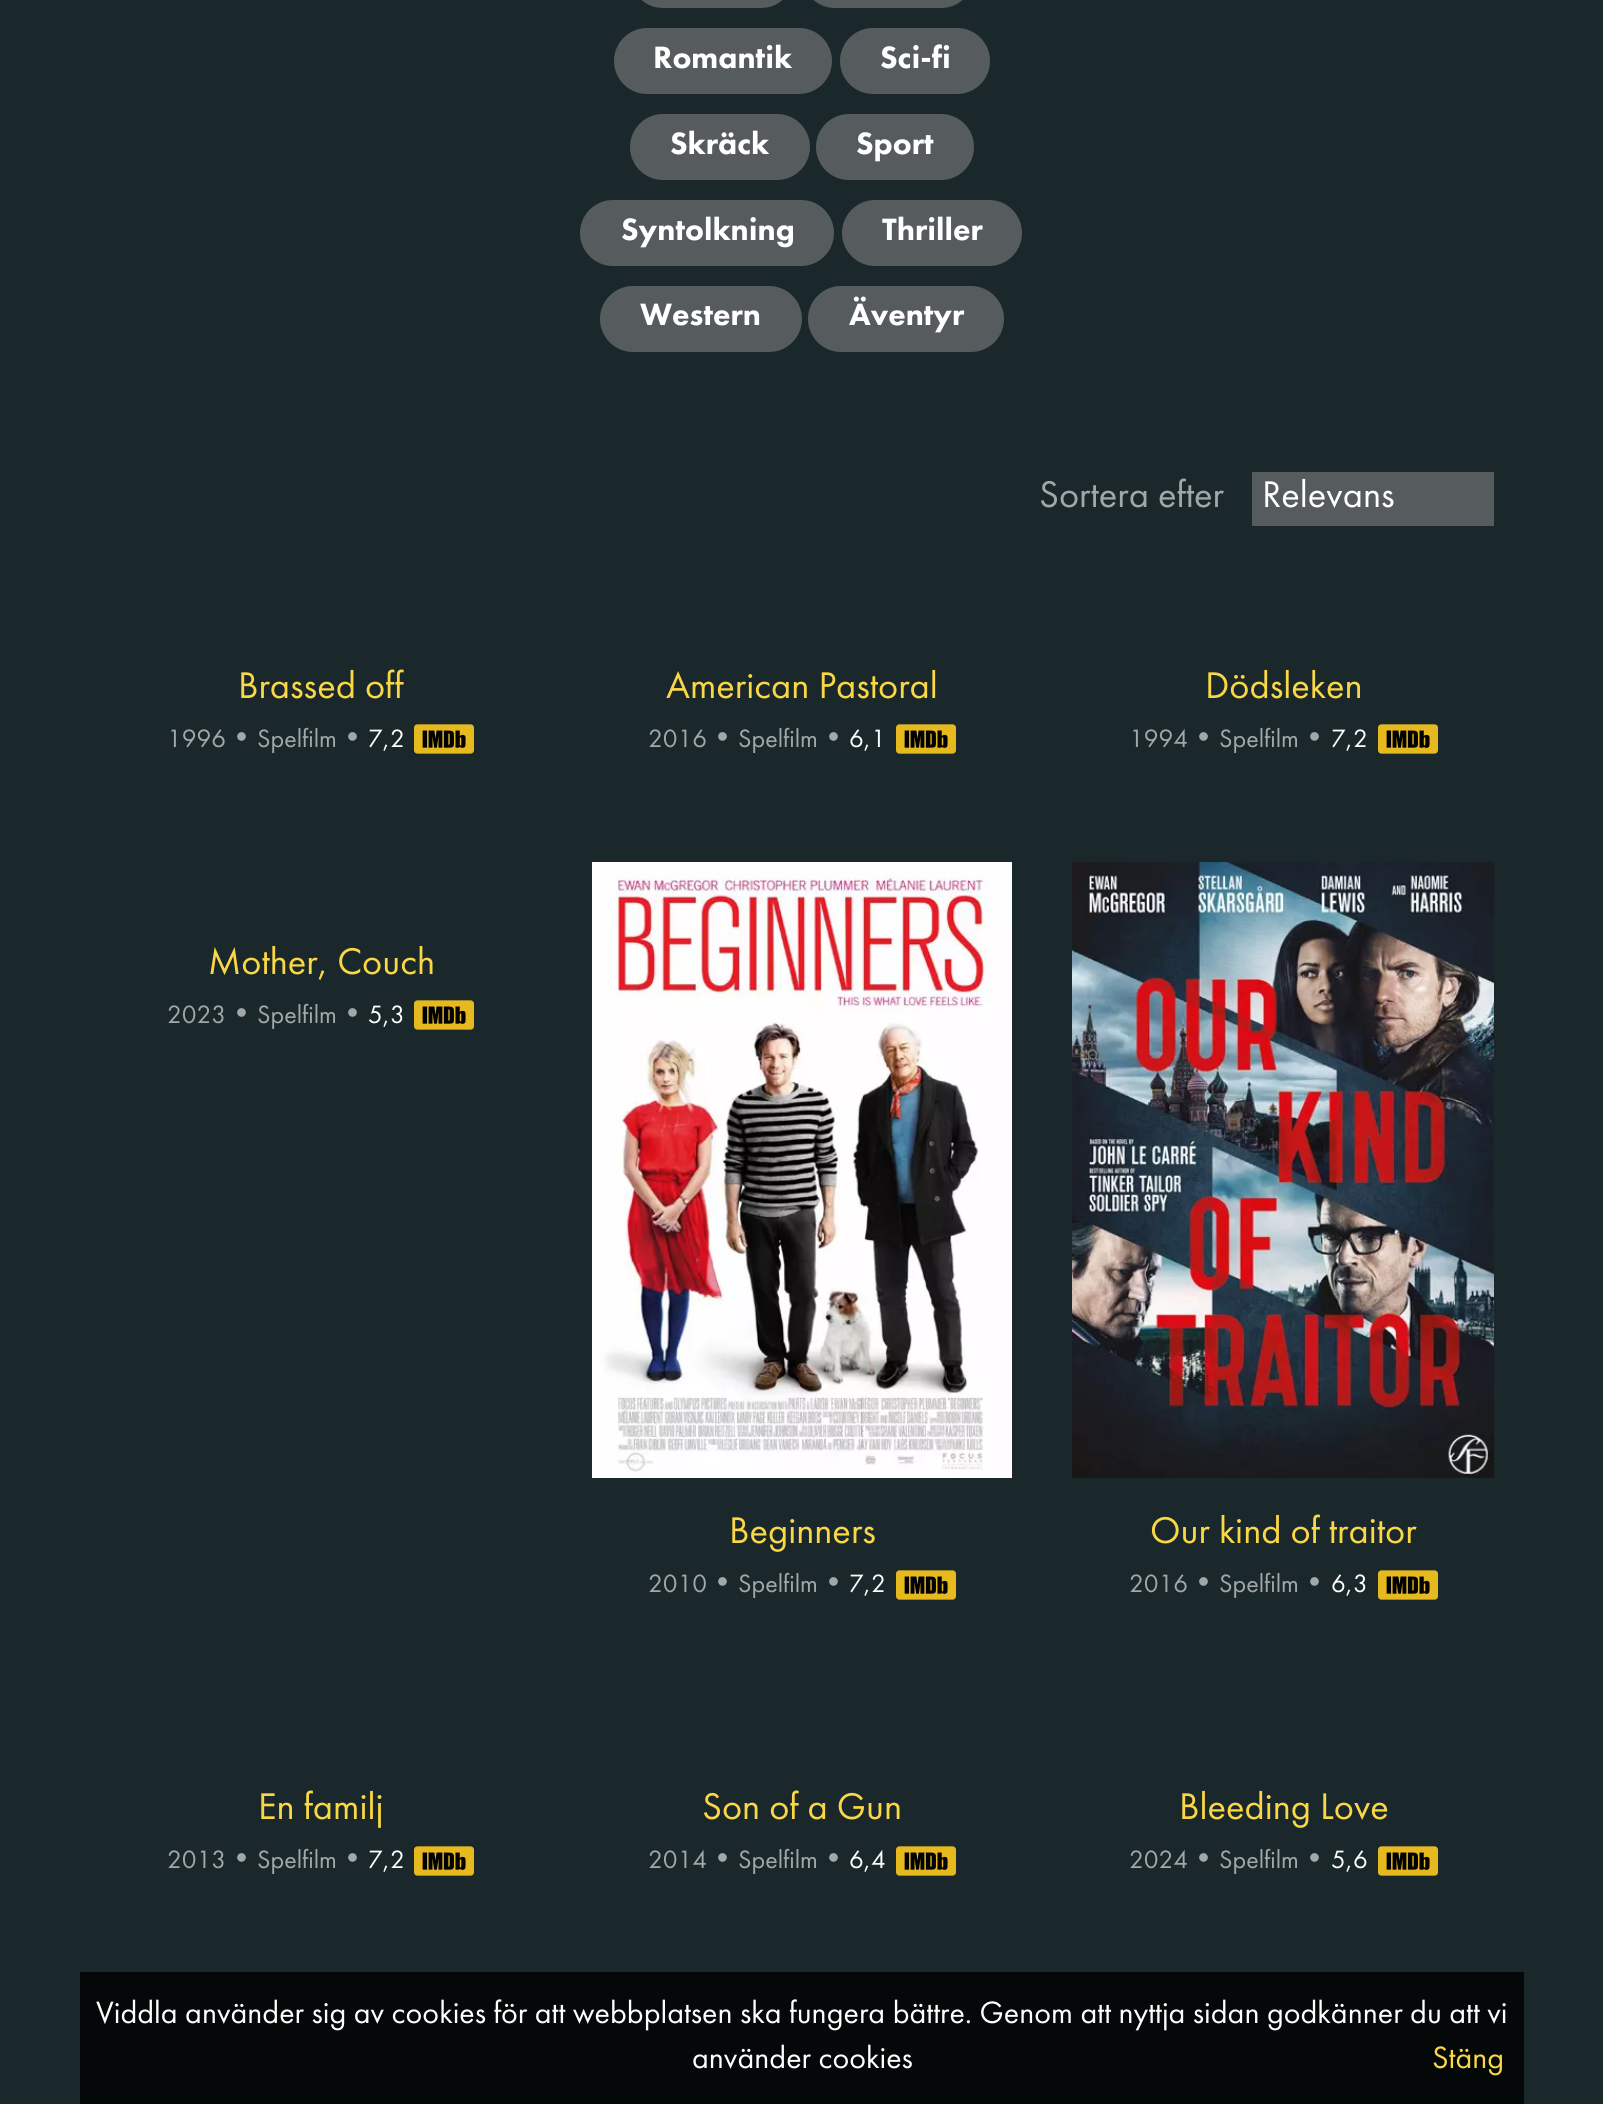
#include <cairo/cairo.h>
#include <math.h>
#include <stddef.h>

static cairo_t *cr;

static void use_color(int r, int g, int b) {
  cairo_set_source_rgb(cr, r / 255.0, g / 255.0, b / 255.0);
}

static void text(double x, double y, const char *s, const char *family, double size, int italic, int bold, int r, int g, int b) {
  cairo_select_font_face(cr, family, italic ? CAIRO_FONT_SLANT_ITALIC : CAIRO_FONT_SLANT_NORMAL,
    bold ? CAIRO_FONT_WEIGHT_BOLD : CAIRO_FONT_WEIGHT_NORMAL);
  cairo_set_font_size(cr, size);
  use_color(r, g, b);
  cairo_move_to(cr, x, y);
  cairo_show_text(cr, s);
}

static void box(double x, double y, double w, double h, int r, int g, int b) {
  use_color(r, g, b);
  cairo_rectangle(cr, x, y, w, h);
  cairo_fill(cr);
}

static void round_rect(double x, double y, double w, double h, double r) {
  cairo_new_sub_path(cr);
  cairo_arc(cr, x + w - r, y + h - r, r, 0, M_PI / 2);
  cairo_arc(cr, x + r, y + h - r, r, M_PI / 2, M_PI);
  cairo_arc(cr, x + r, y + r, r, M_PI, 1.5 * M_PI);
  cairo_arc(cr, x + w - r, y + r, r, 1.5 * M_PI, 2 * M_PI);
  cairo_close_path(cr);
}

static void picture(const char *path, double x, double y, double w, double h) {
  cairo_surface_t *image = cairo_image_surface_create_from_png(path);
  cairo_save(cr);
  cairo_set_source_surface(cr, image, x, y);
  cairo_rectangle(cr, x, y, w, h);
  cairo_fill(cr);
  cairo_restore(cr);
  cairo_surface_destroy(image);
}

static void draw(void) {
  use_color(26, 40, 44);
  cairo_paint(cr);
  use_color(86, 92, 93);
  round_rect(630, -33, 164, 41, 33);
  cairo_fill(cr);
  round_rect(802, -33, 172, 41, 33);
  cairo_fill(cr);
  round_rect(614, 28, 218, 66, 33);
  cairo_fill(cr);
  round_rect(840, 28, 150, 66, 33);
  cairo_fill(cr);
  round_rect(630, 114, 180, 66, 33);
  cairo_fill(cr);
  round_rect(816, 114, 158, 66, 33);
  cairo_fill(cr);
  round_rect(580, 200, 254, 66, 33);
  cairo_fill(cr);
  round_rect(842, 200, 180, 66, 33);
  cairo_fill(cr);
  round_rect(600, 286, 202, 66, 33);
  cairo_fill(cr);
  round_rect(808, 286, 196, 66, 33);
  cairo_fill(cr);
  box(1252, 472, 242, 54, 86, 92, 93);
  picture("img_01.png", 414, 724, 60, 30);
  picture("img_01.png", 896, 724, 60, 30);
  picture("img_01.png", 1378, 724, 60, 30);
  picture("img_01.png", 414, 1000, 60, 30);
  picture("img_02.png", 592, 862, 420, 616);
  picture("img_01.png", 896, 1570, 60, 30);
  picture("img_03.png", 1072, 862, 422, 616);
  picture("img_01.png", 1378, 1570, 60, 30);
  picture("img_01.png", 414, 1846, 60, 30);
  picture("img_01.png", 896, 1846, 60, 30);
  picture("img_01.png", 1378, 1846, 60, 30);
  box(80, 1972, 1444, 132, 5, 8, 9);
  text(653, 68, "Romantik", "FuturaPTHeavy", 32, 0, 0, 255, 255, 255);
  text(880, 68, "Sci-fi", "FuturaPTHeavy", 32, 0, 0, 255, 255, 255);
  text(670, 154, "Skräck", "FuturaPTHeavy", 32, 0, 0, 255, 255, 255);
  text(856, 154, "Sport", "FuturaPTHeavy", 32, 0, 0, 255, 255, 255);
  text(621, 240, "Syntolkning", "FuturaPTHeavy", 32, 0, 0, 255, 255, 255);
  text(882, 240, "Thriller", "FuturaPTHeavy", 32, 0, 0, 255, 255, 255);
  text(640, 325, "Western", "FuturaPTHeavy", 32, 0, 0, 255, 255, 255);
  text(849, 325, "Äventyr", "FuturaPTHeavy", 32, 0, 0, 255, 255, 255);
  text(1039, 507, "Sortera efter", "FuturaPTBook", 38.5, 0, 0, 162, 168, 169);
  text(1262, 507, "Relevans", "FuturaPTBook", 38.5, 0, 0, 255, 255, 255);
  text(238, 698, "Brassed off", "FuturaPTBook", 38.5, 0, 0, 250, 215, 69);
  text(167, 747, "1996", "FuturaPTBook", 26, 0, 0, 162, 168, 169);
  text(226, 747, "•", "FuturaPTBook", 31, 0, 0, 162, 168, 169);
  text(257, 747, "Spelfilm", "FuturaPTBook", 26, 0, 0, 162, 168, 169);
  text(337, 747, "•", "FuturaPTBook", 31, 0, 0, 162, 168, 169);
  text(368, 747, "7,2", "FuturaPTBook", 26, 0, 0, 255, 255, 255);
  text(666, 698, "American Pastoral", "FuturaPTBook", 38.5, 0, 0, 250, 215, 69);
  text(648, 747, "2016", "FuturaPTBook", 26, 0, 0, 162, 168, 169);
  text(707, 747, "•", "FuturaPTBook", 31, 0, 0, 162, 168, 169);
  text(738, 747, "Spelfilm", "FuturaPTBook", 26, 0, 0, 162, 168, 169);
  text(818, 747, "•", "FuturaPTBook", 31, 0, 0, 162, 168, 169);
  text(849, 747, "6,1", "FuturaPTBook", 26, 0, 0, 255, 255, 255);
  text(1205, 698, "Dödsleken", "FuturaPTBook", 38.5, 0, 0, 250, 215, 69);
  text(1129, 747, "1994", "FuturaPTBook", 26, 0, 0, 162, 168, 169);
  text(1188, 747, "•", "FuturaPTBook", 31, 0, 0, 162, 168, 169);
  text(1219, 747, "Spelfilm", "FuturaPTBook", 26, 0, 0, 162, 168, 169);
  text(1299, 747, "•", "FuturaPTBook", 31, 0, 0, 162, 168, 169);
  text(1331, 747, "7,2", "FuturaPTBook", 26, 0, 0, 255, 255, 255);
  text(208, 974, "Mother, Couch", "FuturaPTBook", 38.5, 0, 0, 250, 215, 69);
  text(167, 1023, "2023", "FuturaPTBook", 26, 0, 0, 162, 168, 169);
  text(226, 1023, "•", "FuturaPTBook", 31, 0, 0, 162, 168, 169);
  text(257, 1023, "Spelfilm", "FuturaPTBook", 26, 0, 0, 162, 168, 169);
  text(337, 1023, "•", "FuturaPTBook", 31, 0, 0, 162, 168, 169);
  text(368, 1023, "5,3", "FuturaPTBook", 26, 0, 0, 255, 255, 255);
  text(729, 1543, "Beginners", "FuturaPTBook", 38.5, 0, 0, 250, 215, 69);
  text(648, 1592, "2010", "FuturaPTBook", 26, 0, 0, 162, 168, 169);
  text(707, 1592, "•", "FuturaPTBook", 31, 0, 0, 162, 168, 169);
  text(738, 1592, "Spelfilm", "FuturaPTBook", 26, 0, 0, 162, 168, 169);
  text(818, 1592, "•", "FuturaPTBook", 31, 0, 0, 162, 168, 169);
  text(849, 1592, "7,2", "FuturaPTBook", 26, 0, 0, 255, 255, 255);
  text(1150, 1543, "Our kind of traitor", "FuturaPTBook", 38.5, 0, 0, 250, 215, 69);
  text(1129, 1592, "2016", "FuturaPTBook", 26, 0, 0, 162, 168, 169);
  text(1188, 1592, "•", "FuturaPTBook", 31, 0, 0, 162, 168, 169);
  text(1219, 1592, "Spelfilm", "FuturaPTBook", 26, 0, 0, 162, 168, 169);
  text(1299, 1592, "•", "FuturaPTBook", 31, 0, 0, 162, 168, 169);
  text(1331, 1592, "6,3", "FuturaPTBook", 26, 0, 0, 255, 255, 255);
  text(258, 1819, "En familj", "FuturaPTBook", 38.5, 0, 0, 250, 215, 69);
  text(167, 1868, "2013", "FuturaPTBook", 26, 0, 0, 162, 168, 169);
  text(226, 1868, "•", "FuturaPTBook", 31, 0, 0, 162, 168, 169);
  text(257, 1868, "Spelfilm", "FuturaPTBook", 26, 0, 0, 162, 168, 169);
  text(337, 1868, "•", "FuturaPTBook", 31, 0, 0, 162, 168, 169);
  text(368, 1868, "7,2", "FuturaPTBook", 26, 0, 0, 255, 255, 255);
  text(702, 1819, "Son of a Gun", "FuturaPTBook", 38.5, 0, 0, 250, 215, 69);
  text(648, 1868, "2014", "FuturaPTBook", 26, 0, 0, 162, 168, 169);
  text(707, 1868, "•", "FuturaPTBook", 31, 0, 0, 162, 168, 169);
  text(738, 1868, "Spelfilm", "FuturaPTBook", 26, 0, 0, 162, 168, 169);
  text(818, 1868, "•", "FuturaPTBook", 31, 0, 0, 162, 168, 169);
  text(849, 1868, "6,4", "FuturaPTBook", 26, 0, 0, 255, 255, 255);
  text(1179, 1819, "Bleeding Love", "FuturaPTBook", 38.5, 0, 0, 250, 215, 69);
  text(1129, 1868, "2024", "FuturaPTBook", 26, 0, 0, 162, 168, 169);
  text(1188, 1868, "•", "FuturaPTBook", 31, 0, 0, 162, 168, 169);
  text(1219, 1868, "Spelfilm", "FuturaPTBook", 26, 0, 0, 162, 168, 169);
  text(1299, 1868, "•", "FuturaPTBook", 31, 0, 0, 162, 168, 169);
  text(1331, 1868, "5,6", "FuturaPTBook", 26, 0, 0, 255, 255, 255);
  text(96, 2023, "Viddla använder sig av cookies för att webbplatsen ska fungera bättre. Genom att nyttja sidan godkänner du att vi", "FuturaPTBook", 32, 0, 0, 255, 255, 255);
  text(692, 2068, "använder cookies", "FuturaPTBook", 32, 0, 0, 255, 255, 255);
  text(1432, 2068, "Stäng", "FuturaPTBook", 32, 0, 0, 250, 215, 69);
}

int main(void) {
  cairo_surface_t *surface = cairo_image_surface_create(CAIRO_FORMAT_RGB24, 1603, 2104);
  cr = cairo_create(surface);
  cairo_font_options_t *options = cairo_font_options_create();
  cairo_font_options_set_hint_metrics(options, CAIRO_HINT_METRICS_OFF);
  cairo_font_options_set_hint_style(options, CAIRO_HINT_STYLE_NONE);
  cairo_set_font_options(cr, options);
  cairo_set_miter_limit(cr, 4);
  draw();
  cairo_surface_write_to_png(surface, "out.png");
  cairo_font_options_destroy(options);
  cairo_destroy(cr);
  cairo_surface_destroy(surface);
  return 0;
}
